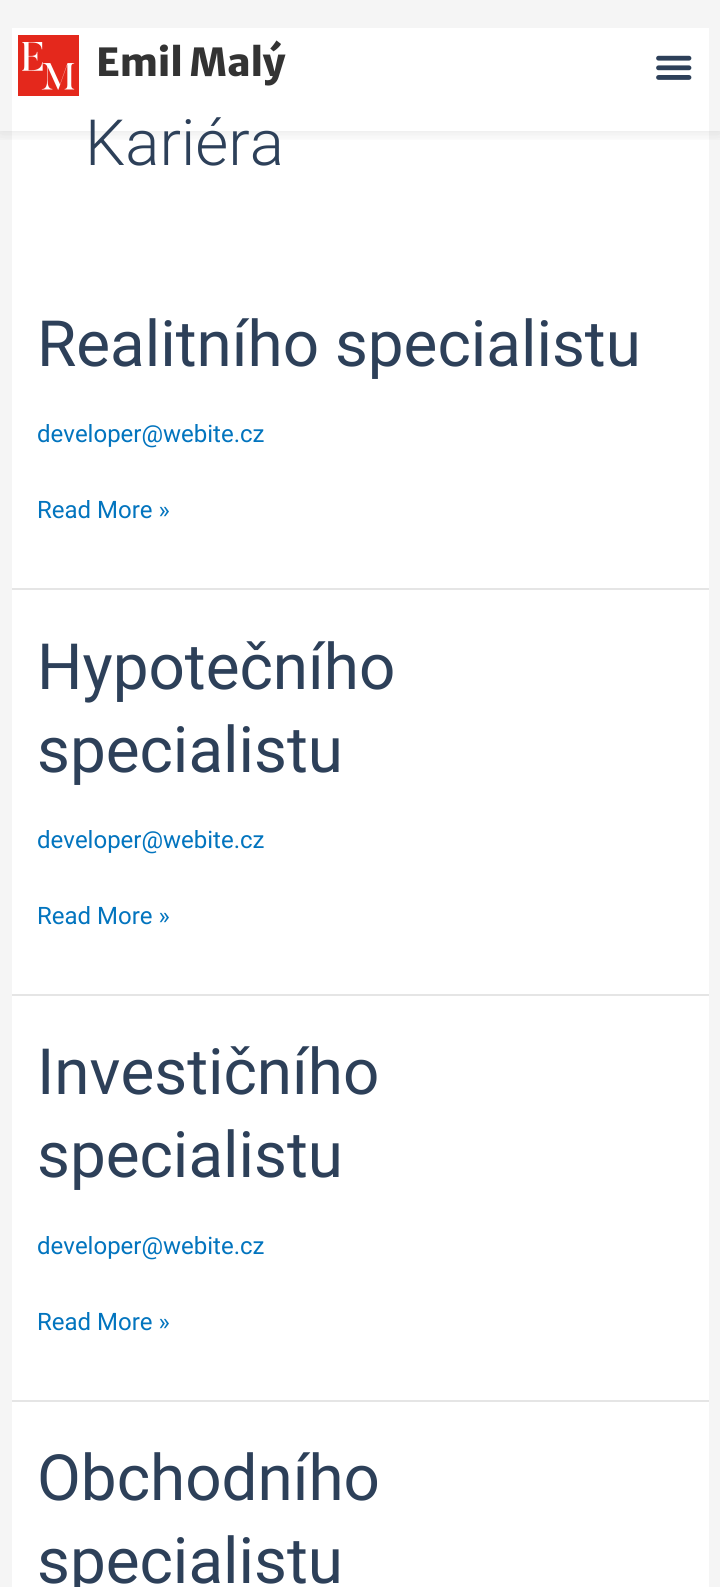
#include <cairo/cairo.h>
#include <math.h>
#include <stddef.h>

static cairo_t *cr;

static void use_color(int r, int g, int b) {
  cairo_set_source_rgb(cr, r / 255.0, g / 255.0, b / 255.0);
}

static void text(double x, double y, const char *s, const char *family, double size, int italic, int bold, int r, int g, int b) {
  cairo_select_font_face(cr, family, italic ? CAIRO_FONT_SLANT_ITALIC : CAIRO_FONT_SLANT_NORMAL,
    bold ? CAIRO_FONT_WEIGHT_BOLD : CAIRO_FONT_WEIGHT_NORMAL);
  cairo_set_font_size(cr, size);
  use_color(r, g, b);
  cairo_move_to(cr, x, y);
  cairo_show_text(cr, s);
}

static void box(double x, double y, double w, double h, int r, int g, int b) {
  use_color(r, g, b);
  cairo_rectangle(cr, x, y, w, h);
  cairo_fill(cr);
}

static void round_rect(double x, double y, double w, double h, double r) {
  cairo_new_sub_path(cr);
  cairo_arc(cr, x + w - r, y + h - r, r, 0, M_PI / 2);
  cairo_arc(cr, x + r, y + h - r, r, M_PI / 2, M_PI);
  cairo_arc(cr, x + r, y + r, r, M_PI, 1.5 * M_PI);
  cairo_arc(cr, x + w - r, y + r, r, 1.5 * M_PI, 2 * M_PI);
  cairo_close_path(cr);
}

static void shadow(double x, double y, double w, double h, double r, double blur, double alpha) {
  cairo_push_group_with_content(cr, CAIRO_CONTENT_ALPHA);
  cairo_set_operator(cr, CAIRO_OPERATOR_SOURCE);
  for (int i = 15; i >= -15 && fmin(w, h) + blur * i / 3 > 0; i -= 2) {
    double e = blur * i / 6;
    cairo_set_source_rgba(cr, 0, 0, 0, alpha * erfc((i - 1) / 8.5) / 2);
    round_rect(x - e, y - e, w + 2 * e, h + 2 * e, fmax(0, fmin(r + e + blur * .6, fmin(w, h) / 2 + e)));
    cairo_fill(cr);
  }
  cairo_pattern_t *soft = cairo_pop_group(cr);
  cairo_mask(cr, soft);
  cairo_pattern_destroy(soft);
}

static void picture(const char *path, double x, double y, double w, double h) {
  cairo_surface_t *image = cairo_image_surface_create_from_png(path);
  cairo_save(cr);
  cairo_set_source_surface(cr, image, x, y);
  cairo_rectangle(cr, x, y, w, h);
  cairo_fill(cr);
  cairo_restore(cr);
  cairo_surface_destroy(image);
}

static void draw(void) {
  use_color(245, 245, 245);
  cairo_paint(cr);
  box(12, 28, 697, 560, 255, 255, 255);
  cairo_save(cr);
  cairo_rectangle(cr, 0, 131, 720, 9);
  cairo_clip(cr);
  use_color(0, 0, 0);
  shadow(0, 0, 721, 131, 0, 9, 0.12);
  cairo_restore(cr);
  picture("img_01.png", 18, 35, 61, 61);
  picture("img_02.png", 656, 55, 36, 25);
  box(12, 588, 697, 2, 229, 229, 229);
  box(12, 590, 697, 404, 255, 255, 255);
  box(12, 994, 697, 2, 229, 229, 229);
  box(12, 996, 697, 404, 255, 255, 255);
  box(12, 1400, 697, 2, 229, 229, 229);
  box(12, 1402, 697, 185, 255, 255, 255);
  text(96, 76, "Emil Malý", "Merriweather Sans ExtraBold", 38.5, 0, 0, 51, 51, 51);
  text(85, 165, "Kariéra", "Roboto Light", 63.75, 0, 0, 45, 64, 89);
  text(37, 366, "Realitního specialistu", "Roboto", 63.75, 0, 0, 45, 64, 89);
  text(37, 442, "developer@webite.cz", "Roboto", 24, 0, 0, 2, 116, 190);
  text(37, 518, "Read More »", "Roboto", 24, 0, 0, 2, 116, 190);
  text(37, 689, "Hypotečního", "Roboto", 63.75, 0, 0, 45, 64, 89);
  text(37, 772, "specialistu", "Roboto", 63.75, 0, 0, 45, 64, 89);
  text(37, 848, "developer@webite.cz", "Roboto", 24, 0, 0, 2, 116, 190);
  text(37, 924, "Read More »", "Roboto", 24, 0, 0, 2, 116, 190);
  text(37, 1094, "Investičního", "Roboto", 63.75, 0, 0, 45, 64, 89);
  text(37, 1177, "specialistu", "Roboto", 63.75, 0, 0, 45, 64, 89);
  text(37, 1254, "developer@webite.cz", "Roboto", 24, 0, 0, 2, 116, 190);
  text(37, 1330, "Read More »", "Roboto", 24, 0, 0, 2, 116, 190);
  text(37, 1500, "Obchodního", "Roboto", 63.75, 0, 0, 45, 64, 89);
  text(37, 1583, "specialistu", "Roboto", 63.75, 0, 0, 45, 64, 89);
}

int main(void) {
  cairo_surface_t *surface = cairo_image_surface_create(CAIRO_FORMAT_RGB24, 720, 1587);
  cr = cairo_create(surface);
  cairo_font_options_t *options = cairo_font_options_create();
  cairo_font_options_set_hint_metrics(options, CAIRO_HINT_METRICS_OFF);
  cairo_font_options_set_hint_style(options, CAIRO_HINT_STYLE_NONE);
  cairo_set_font_options(cr, options);
  cairo_set_miter_limit(cr, 4);
  draw();
  cairo_surface_write_to_png(surface, "out.png");
  cairo_font_options_destroy(options);
  cairo_destroy(cr);
  cairo_surface_destroy(surface);
  return 0;
}
